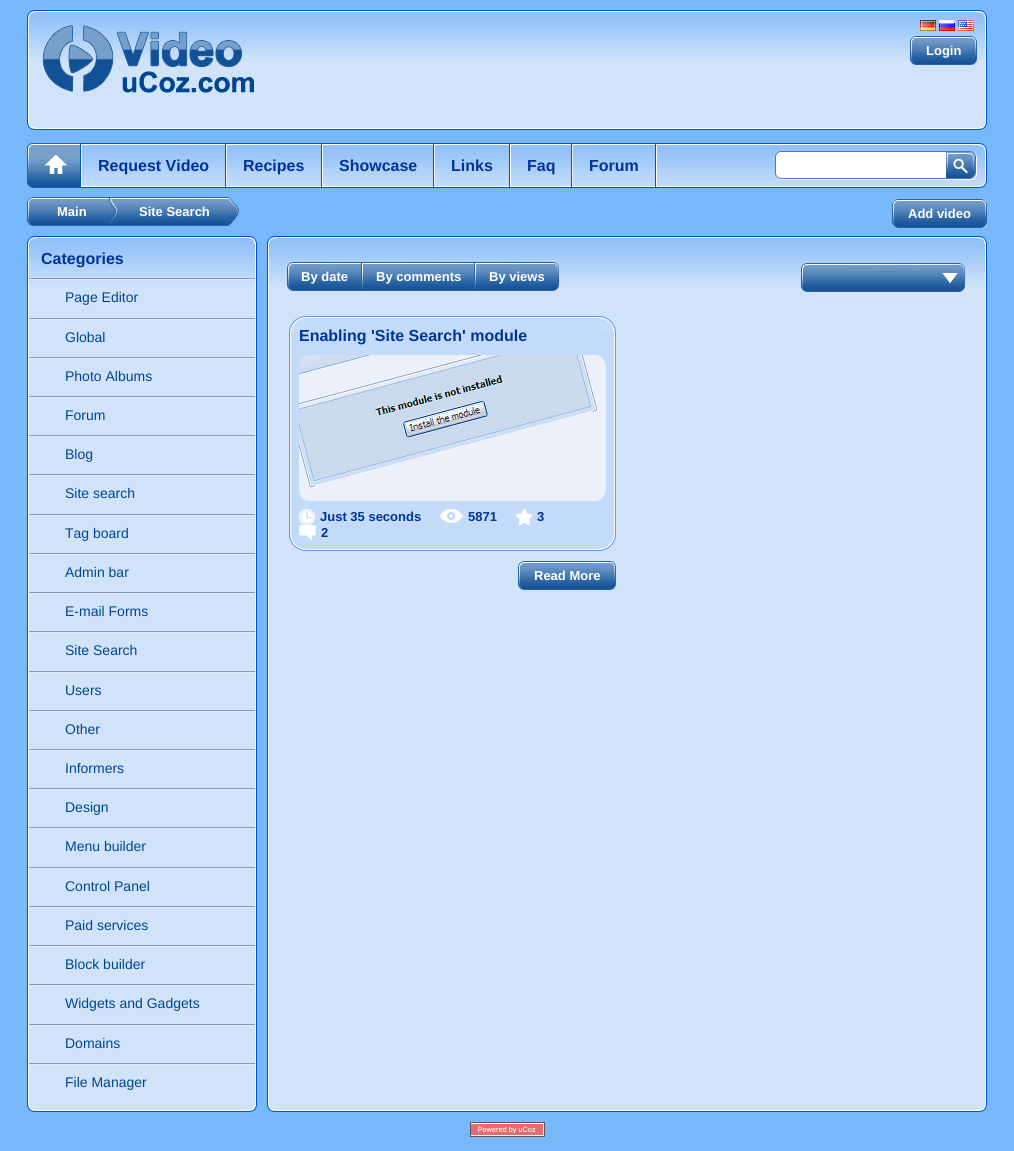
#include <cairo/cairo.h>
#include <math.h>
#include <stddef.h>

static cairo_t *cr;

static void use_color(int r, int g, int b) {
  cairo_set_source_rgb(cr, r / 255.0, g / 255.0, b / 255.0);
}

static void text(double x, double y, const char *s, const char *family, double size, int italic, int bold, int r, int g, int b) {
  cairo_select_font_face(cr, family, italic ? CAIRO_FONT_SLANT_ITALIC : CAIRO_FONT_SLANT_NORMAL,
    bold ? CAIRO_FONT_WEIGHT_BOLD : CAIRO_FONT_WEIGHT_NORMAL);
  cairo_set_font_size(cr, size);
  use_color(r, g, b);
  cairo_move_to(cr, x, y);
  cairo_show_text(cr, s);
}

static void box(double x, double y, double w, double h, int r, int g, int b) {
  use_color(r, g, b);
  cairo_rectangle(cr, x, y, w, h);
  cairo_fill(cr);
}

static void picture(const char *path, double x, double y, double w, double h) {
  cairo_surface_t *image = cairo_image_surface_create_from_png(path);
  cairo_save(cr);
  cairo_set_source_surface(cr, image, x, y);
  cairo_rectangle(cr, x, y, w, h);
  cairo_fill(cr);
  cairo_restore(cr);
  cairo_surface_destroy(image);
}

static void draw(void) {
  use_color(118, 184, 249);
  cairo_paint(cr);
  box(29, 60, 956, 68, 208, 227, 249);
  picture("img_01.png", 29, 10, 956, 50);
  picture("img_02.png", 35, 128, 944, 2);
  picture("img_03.png", 27, 18, 2, 104);
  picture("img_04.png", 985, 18, 2, 104);
  picture("img_05.png", 27, 122, 8, 8);
  picture("img_06.png", 979, 122, 8, 8);
  picture("img_07.png", 27, 10, 8, 8);
  picture("img_08.png", 979, 10, 8, 8);
  picture("img_09.png", 42, 25, 212, 68);
  picture("img_10.png", 920, 20, 16, 11);
  picture("img_11.png", 939, 20, 16, 11);
  picture("img_12.png", 958, 20, 16, 11);
  picture("img_13.png", 910, 36, 63, 29);
  picture("img_14.png", 955, 36, 22, 29);
  picture("img_15.png", 227, 143, 758, 43);
  picture("img_16.png", 227, 186, 752, 2);
  picture("img_17.png", 985, 151, 2, 29);
  picture("img_18.png", 979, 180, 8, 8);
  picture("img_08.png", 979, 143, 8, 8);
  picture("img_19.png", 27, 143, 53, 45);
  picture("img_20.png", 80, 143, 147, 45);
  picture("img_21.png", 225, 144, 2, 43);
  picture("img_22.png", 227, 144, 96, 43);
  box(323, 168, 112, 2, 175, 209, 251);
  picture("img_21.png", 433, 144, 2, 43);
  picture("img_23.png", 435, 144, 76, 43);
  box(511, 168, 62, 2, 175, 209, 251);
  picture("img_21.png", 571, 144, 2, 43);
  picture("img_24.png", 573, 144, 84, 43);
  picture("img_25.png", 775, 151, 202, 29);
  picture("img_26.png", 27, 197, 90, 29);
  picture("img_27.png", 85, 198, 32, 24);
  picture("img_28.png", 109, 197, 103, 29);
  picture("img_29.png", 212, 197, 27, 29);
  picture("img_30.png", 892, 199, 91, 29);
  picture("img_31.png", 965, 199, 22, 29);
  box(29, 286, 226, 824, 208, 227, 249);
  picture("img_32.png", 29, 236, 226, 50);
  picture("img_33.png", 35, 1110, 214, 2);
  picture("img_34.png", 27, 244, 2, 860);
  picture("img_35.png", 255, 244, 2, 860);
  picture("img_05.png", 27, 1104, 8, 8);
  picture("img_06.png", 249, 1104, 8, 8);
  picture("img_07.png", 27, 236, 8, 8);
  picture("img_08.png", 249, 236, 8, 8);
  picture("img_36.png", 29, 278, 226, 2);
  picture("img_36.png", 29, 318, 226, 2);
  picture("img_36.png", 29, 357, 226, 2);
  picture("img_36.png", 29, 396, 226, 2);
  picture("img_36.png", 29, 435, 226, 2);
  picture("img_36.png", 29, 474, 226, 2);
  picture("img_36.png", 29, 514, 226, 2);
  picture("img_36.png", 29, 553, 226, 2);
  picture("img_36.png", 29, 592, 226, 2);
  picture("img_36.png", 29, 631, 226, 2);
  picture("img_36.png", 29, 671, 226, 2);
  picture("img_36.png", 29, 710, 226, 2);
  picture("img_36.png", 29, 749, 226, 2);
  picture("img_36.png", 29, 788, 226, 2);
  picture("img_36.png", 29, 827, 226, 2);
  picture("img_36.png", 29, 867, 226, 2);
  picture("img_36.png", 29, 906, 226, 2);
  picture("img_36.png", 29, 945, 226, 2);
  picture("img_36.png", 29, 984, 226, 2);
  picture("img_36.png", 29, 1024, 226, 2);
  picture("img_36.png", 29, 1063, 226, 2);
  picture("img_37.png", 269, 236, 716, 50);
  picture("img_38.png", 267, 244, 2, 353);
  picture("img_39.png", 985, 244, 2, 353);
  picture("img_07.png", 267, 236, 8, 8);
  picture("img_08.png", 979, 236, 8, 8);
  box(269, 286, 716, 824, 208, 227, 249);
  picture("img_40.png", 287, 262, 75, 29);
  picture("img_41.png", 301, 263, 61, 27);
  picture("img_42.png", 362, 262, 113, 29);
  picture("img_43.png", 376, 263, 99, 27);
  picture("img_44.png", 475, 262, 24, 29);
  picture("img_45.png", 499, 262, 60, 29);
  picture("img_46.png", 801, 263, 164, 29);
  box(291, 318, 323, 231, 195, 219, 249);
  picture("img_47.png", 305, 316, 295, 2);
  picture("img_48.png", 305, 549, 295, 2);
  picture("img_49.png", 289, 332, 2, 203);
  picture("img_50.png", 614, 332, 2, 203);
  picture("img_51.png", 289, 535, 16, 16);
  picture("img_52.png", 600, 535, 16, 16);
  picture("img_53.png", 289, 316, 16, 16);
  picture("img_54.png", 600, 316, 16, 16);
  picture("img_55.png", 299, 355, 307, 146);
  picture("img_56.png", 299, 509, 16, 16);
  picture("img_57.png", 440, 509, 23, 14);
  picture("img_58.png", 516, 509, 16, 16);
  picture("img_59.png", 299, 525, 17, 15);
  picture("img_60.png", 518, 561, 94, 29);
  picture("img_61.png", 594, 561, 22, 29);
  picture("img_62.png", 275, 1110, 704, 2);
  picture("img_63.png", 267, 597, 2, 507);
  picture("img_64.png", 985, 597, 2, 507);
  picture("img_05.png", 267, 1104, 8, 8);
  picture("img_06.png", 979, 1104, 8, 8);
  picture("img_65.png", 470, 1122, 75, 15);
  text(926, 55, "Login", "Liberation Sans", 13, 0, 1, 255, 255, 255);
  text(98, 171, "Request Video", "Liberation Sans", 16, 0, 1, 0, 51, 153);
  text(243, 171, "Recipes", "Liberation Sans", 16, 0, 1, 0, 51, 153);
  text(339, 171, "Showcase", "Liberation Sans", 16, 0, 1, 0, 51, 153);
  text(451, 171, "Links", "Liberation Sans", 16, 0, 1, 0, 51, 153);
  text(527, 171, "Faq", "Liberation Sans", 16, 0, 1, 0, 51, 153);
  text(589, 171, "Forum", "Liberation Sans", 16, 0, 1, 0, 51, 153);
  text(57, 216, "Main", "Liberation Sans", 13, 0, 1, 255, 255, 255);
  text(139, 216, "Site Search", "Liberation Sans", 13, 0, 1, 255, 255, 255);
  text(908, 218, "Add video", "Liberation Sans", 13, 0, 1, 255, 255, 255);
  text(41, 264, "Categories", "Liberation Sans", 16, 0, 1, 0, 51, 153);
  text(65, 302, "Page Editor", "Liberation Sans", 14, 0, 0, 0, 69, 144);
  text(65, 342, "Global", "Liberation Sans", 14, 0, 0, 0, 69, 144);
  text(65, 381, "Photo Albums", "Liberation Sans", 14, 0, 0, 0, 69, 144);
  text(65, 420, "Forum", "Liberation Sans", 14, 0, 0, 0, 69, 144);
  text(65, 459, "Blog", "Liberation Sans", 14, 0, 0, 0, 69, 144);
  text(65, 498, "Site search", "Liberation Sans", 14, 0, 0, 0, 69, 144);
  text(65, 538, "Tag board", "Liberation Sans", 14, 0, 0, 0, 69, 144);
  text(65, 577, "Admin bar", "Liberation Sans", 14, 0, 0, 0, 69, 144);
  text(65, 616, "E-mail Forms", "Liberation Sans", 14, 0, 0, 0, 69, 144);
  text(65, 655, "Site Search", "Liberation Sans", 14, 0, 0, 0, 69, 144);
  text(65, 695, "Users", "Liberation Sans", 14, 0, 0, 0, 69, 144);
  text(65, 734, "Other", "Liberation Sans", 14, 0, 0, 0, 69, 144);
  text(65, 773, "Informers", "Liberation Sans", 14, 0, 0, 0, 69, 144);
  text(65, 812, "Design", "Liberation Sans", 14, 0, 0, 0, 69, 144);
  text(65, 851, "Menu builder", "Liberation Sans", 14, 0, 0, 0, 69, 144);
  text(65, 891, "Control Panel", "Liberation Sans", 14, 0, 0, 0, 69, 144);
  text(65, 930, "Paid services", "Liberation Sans", 14, 0, 0, 0, 69, 144);
  text(65, 969, "Block builder", "Liberation Sans", 14, 0, 0, 0, 69, 144);
  text(65, 1008, "Widgets and Gadgets", "Liberation Sans", 14, 0, 0, 0, 69, 144);
  text(65, 1048, "Domains", "Liberation Sans", 14, 0, 0, 0, 69, 144);
  text(65, 1087, "File Manager", "Liberation Sans", 14, 0, 0, 0, 69, 144);
  text(301, 281, "By date", "Liberation Sans", 13, 0, 1, 255, 255, 255);
  text(376, 281, "By comments", "Liberation Sans", 13, 0, 1, 255, 255, 255);
  text(489, 281, "By views", "Liberation Sans", 13, 0, 1, 255, 255, 255);
  text(299, 341, "Enabling 'Site Search' module", "Liberation Sans", 16, 0, 1, 0, 51, 153);
  text(320, 521, "Just 35 seconds", "Liberation Sans", 13, 0, 1, 0, 51, 153);
  text(468, 521, "5871", "Liberation Sans", 13, 0, 1, 0, 51, 153);
  text(537, 521, "3", "Liberation Sans", 13, 0, 1, 0, 51, 153);
  text(321, 537, "2", "Liberation Sans", 13, 0, 1, 0, 51, 153);
  text(534, 580, "Read More", "Liberation Sans", 13, 0, 1, 255, 255, 255);
}

int main(void) {
  cairo_surface_t *surface = cairo_image_surface_create(CAIRO_FORMAT_RGB24, 1014, 1151);
  cr = cairo_create(surface);
  cairo_font_options_t *options = cairo_font_options_create();
  cairo_font_options_set_hint_metrics(options, CAIRO_HINT_METRICS_OFF);
  cairo_font_options_set_hint_style(options, CAIRO_HINT_STYLE_NONE);
  cairo_set_font_options(cr, options);
  cairo_set_miter_limit(cr, 4);
  draw();
  cairo_surface_write_to_png(surface, "out.png");
  cairo_font_options_destroy(options);
  cairo_destroy(cr);
  cairo_surface_destroy(surface);
  return 0;
}
